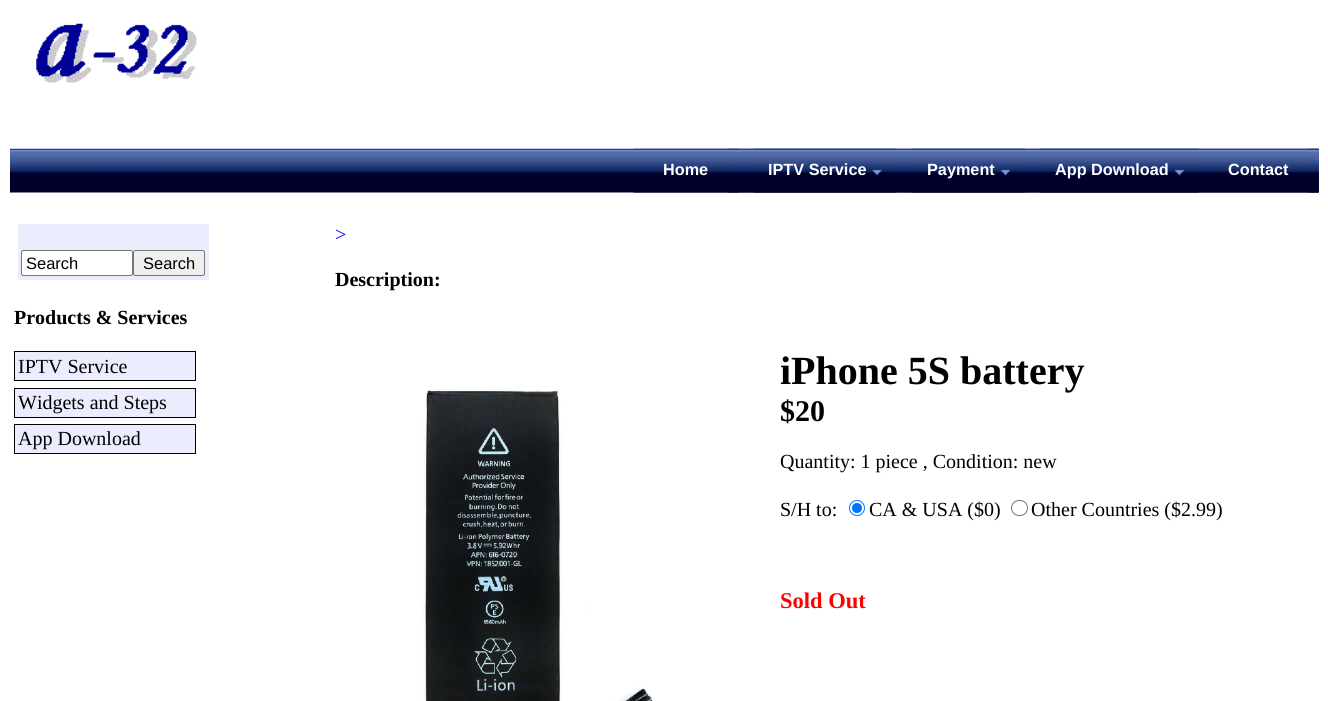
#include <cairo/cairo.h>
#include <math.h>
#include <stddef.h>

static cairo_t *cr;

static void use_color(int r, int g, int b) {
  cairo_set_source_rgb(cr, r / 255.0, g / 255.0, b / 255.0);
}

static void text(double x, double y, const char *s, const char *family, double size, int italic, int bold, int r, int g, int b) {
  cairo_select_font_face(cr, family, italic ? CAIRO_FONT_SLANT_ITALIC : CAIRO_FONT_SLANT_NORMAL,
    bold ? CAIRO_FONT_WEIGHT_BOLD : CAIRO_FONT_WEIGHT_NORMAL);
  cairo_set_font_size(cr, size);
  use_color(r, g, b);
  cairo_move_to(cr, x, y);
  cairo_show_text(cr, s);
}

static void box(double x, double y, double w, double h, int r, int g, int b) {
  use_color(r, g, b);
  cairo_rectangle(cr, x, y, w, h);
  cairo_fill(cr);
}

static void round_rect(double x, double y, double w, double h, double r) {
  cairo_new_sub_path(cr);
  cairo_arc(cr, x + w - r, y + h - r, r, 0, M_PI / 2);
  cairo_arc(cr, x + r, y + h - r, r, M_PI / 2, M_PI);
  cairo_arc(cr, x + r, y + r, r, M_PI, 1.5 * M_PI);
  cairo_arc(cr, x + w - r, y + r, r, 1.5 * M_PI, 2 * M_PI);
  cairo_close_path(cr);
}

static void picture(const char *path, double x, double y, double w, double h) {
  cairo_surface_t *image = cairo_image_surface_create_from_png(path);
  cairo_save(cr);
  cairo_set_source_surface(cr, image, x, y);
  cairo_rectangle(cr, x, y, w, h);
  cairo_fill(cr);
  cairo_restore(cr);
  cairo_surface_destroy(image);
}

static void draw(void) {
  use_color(255, 255, 255);
  cairo_paint(cr);
  picture("img_01.png", 36, 23, 161, 60);
  picture("img_02.png", 10, 148, 1309, 45);
  picture("img_07.png", 896, 148, 129, 45);
  picture("img_05.png", 738, 148, 159, 45);
  picture("img_03.png", 633, 148, 106, 45);
  picture("img_04.png", 728, 148, 11, 45);
  picture("img_06.png", 753, 148, 144, 45);
  picture("img_08.png", 911, 148, 114, 45);
  picture("img_11.png", 1198, 148, 121, 45);
  picture("img_09.png", 1025, 148, 174, 45);
  picture("img_10.png", 1040, 148, 159, 45);
  picture("img_12.png", 1308, 148, 11, 45);
  box(18, 224, 191, 56, 236, 236, 255);
  use_color(255, 255, 255);
  round_rect(21.5, 250.5, 111, 25, 2);
  cairo_fill_preserve(cr);
  use_color(118, 118, 118);
  cairo_set_line_width(cr, 1);
  cairo_stroke(cr);
  use_color(239, 239, 239);
  round_rect(133.5, 250.5, 71, 25, 2);
  cairo_fill_preserve(cr);
  use_color(118, 118, 118);
  cairo_stroke(cr);
  use_color(236, 236, 255);
  cairo_rectangle(cr, 14.5, 351.5, 181, 29);
  cairo_fill_preserve(cr);
  use_color(0, 0, 0);
  cairo_stroke(cr);
  use_color(236, 236, 255);
  cairo_rectangle(cr, 14.5, 388.5, 181, 29);
  cairo_fill_preserve(cr);
  use_color(0, 0, 0);
  cairo_stroke(cr);
  use_color(236, 236, 255);
  cairo_rectangle(cr, 14.5, 424.5, 181, 29);
  cairo_fill_preserve(cr);
  use_color(0, 0, 0);
  cairo_stroke(cr);
  picture("img_13.png", 422, 389, 233, 312);
  cairo_arc(cr, 857, 508, 7.5, 0, 2 * M_PI);
  use_color(0, 117, 255);
  cairo_stroke(cr);
  cairo_arc(cr, 857, 508, 5, 0, 2 * M_PI);
  cairo_fill(cr);
  round_rect(1011.5, 500.5, 16, 15, 7.5);
  use_color(118, 118, 118);
  cairo_stroke(cr);
  text(663, 175, "Home", "Liberation Sans", 16.25, 0, 1, 255, 255, 255);
  text(768, 175, "IPTV Service", "Liberation Sans", 16.25, 0, 1, 255, 255, 255);
  text(927, 175, "Payment", "Liberation Sans", 16.25, 0, 1, 255, 255, 255);
  text(1055, 175, "App Download", "Liberation Sans", 16.25, 0, 1, 255, 255, 255);
  text(1228, 175, "Contact", "Liberation Sans", 16.25, 0, 1, 255, 255, 255);
  text(26, 269, "Search", "Liberation Sans", 16.5, 0, 0, 0, 0, 0);
  text(143, 269, "Search", "Liberation Sans", 16.5, 0, 0, 0, 0, 0);
  text(14, 324, "Products & Services", "Liberation Serif", 20, 0, 1, 0, 0, 0);
  text(18, 373, "IPTV Service", "Liberation Serif", 20, 0, 0, 0, 0, 0);
  text(18, 409, "Widgets and Steps", "Liberation Serif", 20, 0, 0, 0, 0, 0);
  text(18, 445, "App Download", "Liberation Serif", 20, 0, 0, 0, 0, 0);
  text(335, 241, ">", "Liberation Serif", 20, 0, 0, 0, 0, 255);
  text(335, 286, "Description:", "Liberation Serif", 20, 0, 1, 0, 0, 0);
  text(780, 384, "iPhone 5S battery", "Liberation Serif", 40, 0, 1, 0, 0, 0);
  text(780, 421, "$20", "Liberation Serif", 30, 0, 1, 0, 0, 0);
  text(780, 468, "Quantity: 1 piece , Condition: new", "Liberation Serif", 20, 0, 0, 0, 0, 0);
  text(780, 516, "S/H to:", "Liberation Serif", 20, 0, 0, 0, 0, 0);
  text(869, 516, "CA & USA ($0)", "Liberation Serif", 20, 0, 0, 0, 0, 0);
  text(1031, 516, "Other Countries ($2.99)", "Liberation Serif", 20, 0, 0, 0, 0, 0);
  text(780, 608, "Sold Out", "Liberation Serif", 22.5, 0, 1, 255, 0, 0);
}

int main(void) {
  cairo_surface_t *surface = cairo_image_surface_create(CAIRO_FORMAT_RGB24, 1328, 701);
  cr = cairo_create(surface);
  cairo_font_options_t *options = cairo_font_options_create();
  cairo_font_options_set_hint_metrics(options, CAIRO_HINT_METRICS_OFF);
  cairo_font_options_set_hint_style(options, CAIRO_HINT_STYLE_NONE);
  cairo_set_font_options(cr, options);
  cairo_set_miter_limit(cr, 4);
  draw();
  cairo_surface_write_to_png(surface, "out.png");
  cairo_font_options_destroy(options);
  cairo_destroy(cr);
  cairo_surface_destroy(surface);
  return 0;
}
